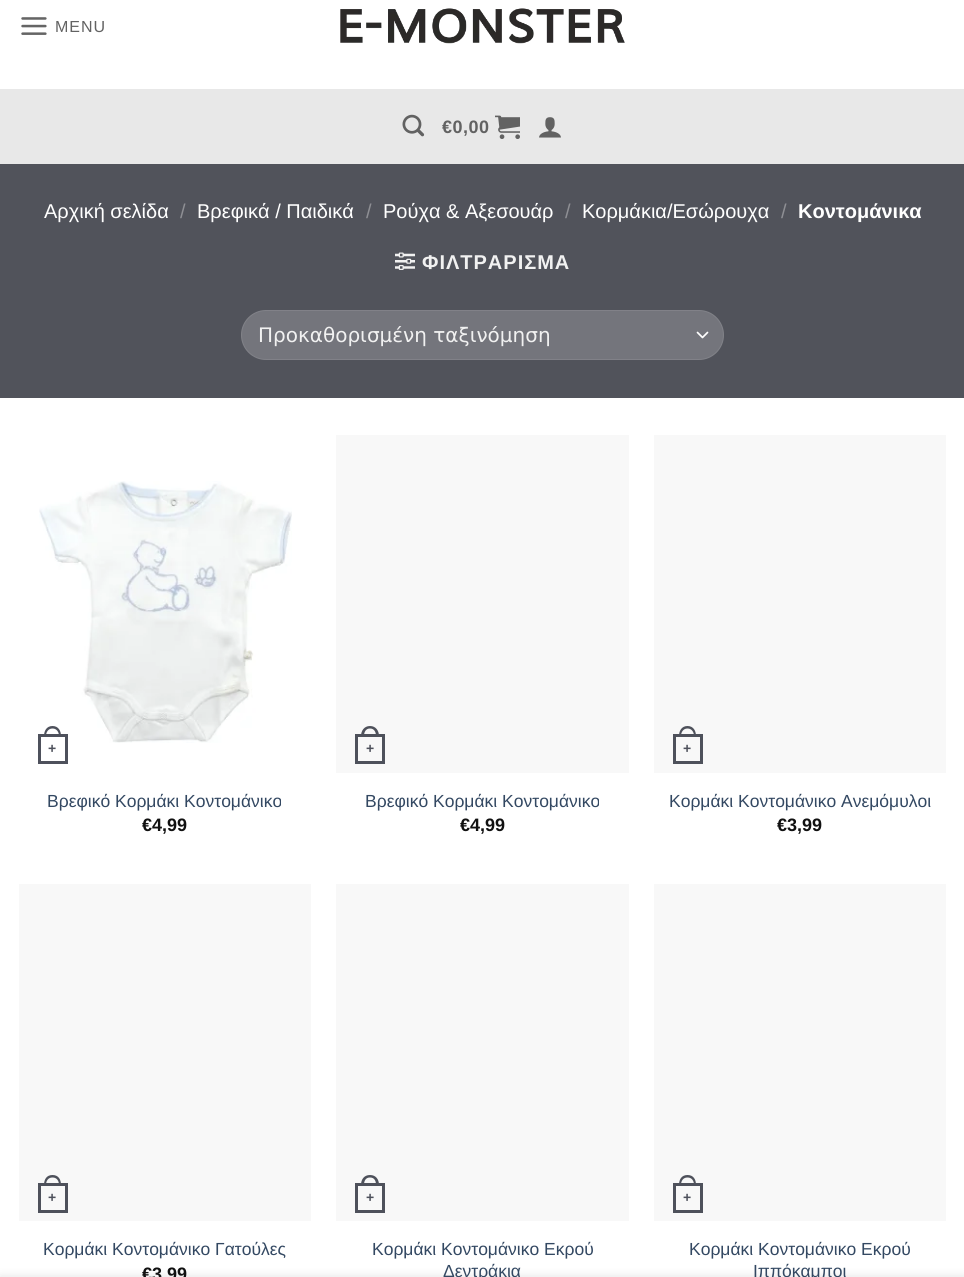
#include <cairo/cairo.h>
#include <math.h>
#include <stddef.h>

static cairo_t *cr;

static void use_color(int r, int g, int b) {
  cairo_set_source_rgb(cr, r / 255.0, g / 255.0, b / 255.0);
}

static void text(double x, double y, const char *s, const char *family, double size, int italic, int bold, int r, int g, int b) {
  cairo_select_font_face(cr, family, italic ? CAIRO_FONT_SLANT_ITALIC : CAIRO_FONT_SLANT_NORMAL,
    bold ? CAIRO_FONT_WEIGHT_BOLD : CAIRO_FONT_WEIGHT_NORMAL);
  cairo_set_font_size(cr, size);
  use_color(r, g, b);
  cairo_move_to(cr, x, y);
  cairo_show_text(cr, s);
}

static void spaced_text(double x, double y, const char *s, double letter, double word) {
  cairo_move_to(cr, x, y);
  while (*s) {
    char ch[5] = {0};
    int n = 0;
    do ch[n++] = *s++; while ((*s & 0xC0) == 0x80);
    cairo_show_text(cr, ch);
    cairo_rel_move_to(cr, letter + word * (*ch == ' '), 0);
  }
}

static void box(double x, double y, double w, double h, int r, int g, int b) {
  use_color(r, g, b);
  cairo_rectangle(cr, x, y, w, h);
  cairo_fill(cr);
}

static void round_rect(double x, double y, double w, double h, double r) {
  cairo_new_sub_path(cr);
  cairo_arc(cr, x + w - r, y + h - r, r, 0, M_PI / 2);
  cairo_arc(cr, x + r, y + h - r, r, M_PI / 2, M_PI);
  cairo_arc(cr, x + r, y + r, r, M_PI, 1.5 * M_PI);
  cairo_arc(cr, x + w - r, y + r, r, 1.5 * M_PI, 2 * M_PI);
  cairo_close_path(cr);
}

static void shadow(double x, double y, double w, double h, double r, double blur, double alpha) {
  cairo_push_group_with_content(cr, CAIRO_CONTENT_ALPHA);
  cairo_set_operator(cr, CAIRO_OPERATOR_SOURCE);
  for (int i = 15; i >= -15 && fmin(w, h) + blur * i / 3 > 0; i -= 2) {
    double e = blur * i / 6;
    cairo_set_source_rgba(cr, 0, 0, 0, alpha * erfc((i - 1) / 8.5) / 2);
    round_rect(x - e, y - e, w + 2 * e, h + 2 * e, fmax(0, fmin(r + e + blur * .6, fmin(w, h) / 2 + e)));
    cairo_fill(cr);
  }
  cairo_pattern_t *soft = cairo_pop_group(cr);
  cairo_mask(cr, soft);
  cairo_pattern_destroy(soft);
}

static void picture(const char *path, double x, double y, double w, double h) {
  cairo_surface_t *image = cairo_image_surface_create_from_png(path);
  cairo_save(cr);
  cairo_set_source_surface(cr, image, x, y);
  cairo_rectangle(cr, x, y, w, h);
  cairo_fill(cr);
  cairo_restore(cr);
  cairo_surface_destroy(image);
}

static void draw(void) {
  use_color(255, 255, 255);
  cairo_paint(cr);
  picture("img_01.png", 21, 17, 26, 18);
  picture("img_02.png", 340, 8, 285, 36);
  box(0, 89, 964, 75, 232, 232, 232);
  picture("img_03.png", 402, 114, 23, 23);
  picture("img_04.png", 495, 115, 25, 24);
  picture("img_05.png", 539, 117, 22, 21);
  box(0, 164, 964, 234, 81, 83, 91);
  picture("img_06.png", 395, 252, 20, 18);
  use_color(116, 117, 124);
  round_rect(241, 310, 483, 50, 25);
  cairo_fill(cr);
  cairo_new_path(cr);
  cairo_move_to(cr, 697.5, 332.5);
  cairo_line_to(cr, 702.5, 337.5);
  cairo_line_to(cr, 707.5, 332.5);
  use_color(255, 255, 255);
  cairo_set_line_width(cr, 1.7);
  cairo_set_line_cap(cr, CAIRO_LINE_CAP_ROUND);
  cairo_set_line_join(cr, CAIRO_LINE_JOIN_ROUND);
  cairo_stroke(cr);
  round_rect(241.5, 310.5, 482, 49, 24.5);
  cairo_set_source_rgba(cr, 1, 1, 1, 0.09);
  cairo_set_line_width(cr, 1);
  cairo_set_line_cap(cr, CAIRO_LINE_CAP_BUTT);
  cairo_set_line_join(cr, CAIRO_LINE_JOIN_MITER);
  cairo_stroke(cr);
  picture("img_07.png", 39, 481, 253, 262);
  cairo_rectangle(cr, 39.5, 735.5, 27, 27);
  use_color(78, 81, 92);
  cairo_set_line_width(cr, 3);
  cairo_stroke(cr);
  cairo_set_fill_rule(cr, CAIRO_FILL_RULE_EVEN_ODD);
  cairo_new_path(cr);
  cairo_move_to(cr, 52.5, 726);
  cairo_curve_to(cr, 58.5, 726, 61, 731, 61, 736);
  cairo_line_to(cr, 44, 736);
  cairo_curve_to(cr, 44, 731, 46.5, 726, 52.5, 726);
  cairo_close_path(cr);
  cairo_move_to(cr, 52.5, 728.5);
  cairo_curve_to(cr, 57, 728.5, 59, 732.5, 59, 736);
  cairo_line_to(cr, 46, 736);
  cairo_curve_to(cr, 46, 732.5, 48, 728.5, 52.5, 728.5);
  cairo_close_path(cr);
  cairo_fill(cr);
  box(336, 435, 293, 338, 248, 248, 248);
  cairo_rectangle(cr, 356.5, 735.5, 27, 27);
  use_color(78, 81, 91);
  cairo_stroke(cr);
  cairo_new_path(cr);
  cairo_move_to(cr, 370, 726);
  cairo_curve_to(cr, 376, 726, 379, 731, 379, 736);
  cairo_line_to(cr, 361, 736);
  cairo_curve_to(cr, 361, 731, 364, 726, 370, 726);
  cairo_close_path(cr);
  cairo_move_to(cr, 370, 728.5);
  cairo_curve_to(cr, 374.5, 728.5, 376, 732.5, 376, 736);
  cairo_line_to(cr, 364, 736);
  cairo_curve_to(cr, 364, 732.5, 365.5, 728.5, 370, 728.5);
  cairo_close_path(cr);
  cairo_fill(cr);
  box(654, 435, 292, 338, 248, 248, 248);
  cairo_rectangle(cr, 674.5, 735.5, 27, 27);
  use_color(78, 81, 91);
  cairo_stroke(cr);
  cairo_new_path(cr);
  cairo_move_to(cr, 687.5, 726);
  cairo_curve_to(cr, 693.5, 726, 696, 731, 696, 736);
  cairo_line_to(cr, 679, 736);
  cairo_curve_to(cr, 679, 731, 681.5, 726, 687.5, 726);
  cairo_close_path(cr);
  cairo_move_to(cr, 687.5, 728.5);
  cairo_curve_to(cr, 692, 728.5, 694, 732.5, 694, 736);
  cairo_line_to(cr, 681, 736);
  cairo_curve_to(cr, 681, 732.5, 683, 728.5, 687.5, 728.5);
  cairo_close_path(cr);
  cairo_fill(cr);
  box(19, 884, 292, 337, 248, 248, 248);
  cairo_rectangle(cr, 39.5, 1184.5, 27, 27);
  use_color(78, 81, 91);
  cairo_stroke(cr);
  cairo_new_path(cr);
  cairo_move_to(cr, 52.5, 1175);
  cairo_curve_to(cr, 58.5, 1175, 61, 1179.5, 61, 1185);
  cairo_line_to(cr, 44, 1185);
  cairo_curve_to(cr, 44, 1179.5, 46.5, 1175, 52.5, 1175);
  cairo_close_path(cr);
  cairo_move_to(cr, 52.5, 1177.5);
  cairo_curve_to(cr, 57, 1177.5, 59, 1181, 59, 1185);
  cairo_line_to(cr, 46, 1185);
  cairo_curve_to(cr, 46, 1181, 48, 1177.5, 52.5, 1177.5);
  cairo_close_path(cr);
  cairo_fill(cr);
  box(336, 884, 293, 337, 248, 248, 248);
  cairo_rectangle(cr, 356.5, 1184.5, 27, 27);
  use_color(78, 81, 91);
  cairo_stroke(cr);
  cairo_new_path(cr);
  cairo_move_to(cr, 370, 1175);
  cairo_curve_to(cr, 376, 1175, 379, 1179.5, 379, 1185);
  cairo_line_to(cr, 361, 1185);
  cairo_curve_to(cr, 361, 1179.5, 364, 1175, 370, 1175);
  cairo_close_path(cr);
  cairo_move_to(cr, 370, 1177.5);
  cairo_curve_to(cr, 374.5, 1177.5, 376, 1181, 376, 1185);
  cairo_line_to(cr, 364, 1185);
  cairo_curve_to(cr, 364, 1181, 365.5, 1177.5, 370, 1177.5);
  cairo_close_path(cr);
  cairo_fill(cr);
  box(654, 884, 292, 337, 248, 248, 248);
  cairo_rectangle(cr, 674.5, 1184.5, 27, 27);
  use_color(78, 81, 91);
  cairo_stroke(cr);
  cairo_new_path(cr);
  cairo_move_to(cr, 687.5, 1175);
  cairo_curve_to(cr, 693.5, 1175, 696, 1179.5, 696, 1185);
  cairo_line_to(cr, 679, 1185);
  cairo_curve_to(cr, 679, 1179.5, 681.5, 1175, 687.5, 1175);
  cairo_close_path(cr);
  cairo_move_to(cr, 687.5, 1177.5);
  cairo_curve_to(cr, 692, 1177.5, 694, 1181, 694, 1185);
  cairo_line_to(cr, 681, 1185);
  cairo_curve_to(cr, 681, 1181, 683, 1177.5, 687.5, 1177.5);
  cairo_close_path(cr);
  cairo_fill(cr);
  use_color(0, 0, 0);
  shadow(0, 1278, 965, 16, 0, 5.5, 0.14);
  cairo_select_font_face(cr, "Liberation Sans", CAIRO_FONT_SLANT_NORMAL, CAIRO_FONT_WEIGHT_NORMAL);
  cairo_set_font_size(cr, 16);
  use_color(98, 98, 98);
  spaced_text(55, 32, "MENU", 1, 0);
  cairo_select_font_face(cr, "Liberation Sans", CAIRO_FONT_SLANT_NORMAL, CAIRO_FONT_WEIGHT_BOLD);
  cairo_set_font_size(cr, 18);
  spaced_text(442, 133, "€0,00", 0.5, 0);
  text(44, 218, "Αρχική σελίδα", "Liberation Sans", 20, 0, 0, 255, 255, 255);
  text(180, 218, "/", "Liberation Sans", 20, 0, 0, 142, 143, 148);
  text(197, 218, "Βρεφικά / Παιδικά", "Liberation Sans", 20, 0, 0, 255, 255, 255);
  text(366, 218, "/", "Liberation Sans", 20, 0, 0, 142, 143, 148);
  text(383, 218, "Ρούχα & Αξεσουάρ", "Liberation Sans", 20, 0, 0, 255, 255, 255);
  text(565, 218, "/", "Liberation Sans", 20, 0, 0, 142, 143, 148);
  text(582, 218, "Κορμάκια/Εσώρουχα", "Liberation Sans", 20, 0, 0, 255, 255, 255);
  text(781, 218, "/", "Liberation Sans", 20, 0, 0, 142, 143, 148);
  text(798, 218, "Κοντομάνικα", "Liberation Sans", 20, 0, 1, 255, 255, 255);
  use_color(241, 241, 241);
  spaced_text(422, 269, "ΦΙΛΤΡΑΡΙΣΜΑ", 1, 0);
  text(258, 342, "Προκαθορισμένη ταξινόμηση", "DejaVu Sans", 20, 0, 0, 241, 241, 241);
  text(48, 753, "+", "Liberation Sans", 14, 0, 1, 78, 81, 92);
  text(47, 807, "Βρεφικό Κορμάκι Κοντομάνικο", "Liberation Sans", 17.5, 0, 0, 51, 72, 98);
  text(142, 831, "€4,99", "Liberation Sans", 18, 0, 1, 17, 17, 17);
  text(366, 753, "+", "Liberation Sans", 14, 0, 1, 78, 81, 92);
  text(365, 807, "Βρεφικό Κορμάκι Κοντομάνικο", "Liberation Sans", 17.5, 0, 0, 51, 72, 98);
  text(460, 831, "€4,99", "Liberation Sans", 18, 0, 1, 17, 17, 17);
  text(683, 753, "+", "Liberation Sans", 14, 0, 1, 78, 81, 92);
  text(669, 807, "Κορμάκι Κοντομάνικο Ανεμόμυλοι", "Liberation Sans", 17.5, 0, 0, 51, 72, 98);
  text(777, 831, "€3,99", "Liberation Sans", 18, 0, 1, 17, 17, 17);
  text(48, 1202, "+", "Liberation Sans", 14, 0, 1, 78, 81, 92);
  text(43, 1255, "Κορμάκι Κοντομάνικο Γατούλες", "Liberation Sans", 17.5, 0, 0, 51, 72, 98);
  text(142, 1280, "€3,99", "Liberation Sans", 18, 0, 1, 17, 17, 17);
  text(366, 1202, "+", "Liberation Sans", 14, 0, 1, 78, 81, 92);
  text(372, 1255, "Κορμάκι Κοντομάνικο Εκρού", "Liberation Sans", 17.5, 0, 0, 51, 72, 98);
  text(443, 1277, "Δεντράκια", "Liberation Sans", 17.5, 0, 0, 51, 72, 98);
  text(683, 1202, "+", "Liberation Sans", 14, 0, 1, 78, 81, 92);
  text(689, 1255, "Κορμάκι Κοντομάνικο Εκρού", "Liberation Sans", 17.5, 0, 0, 51, 72, 98);
  text(753, 1277, "Ιππόκαμποι", "Liberation Sans", 17.5, 0, 0, 51, 72, 98);
}

int main(void) {
  cairo_surface_t *surface = cairo_image_surface_create(CAIRO_FORMAT_RGB24, 964, 1277);
  cr = cairo_create(surface);
  cairo_font_options_t *options = cairo_font_options_create();
  cairo_font_options_set_hint_metrics(options, CAIRO_HINT_METRICS_OFF);
  cairo_font_options_set_hint_style(options, CAIRO_HINT_STYLE_NONE);
  cairo_set_font_options(cr, options);
  cairo_set_miter_limit(cr, 4);
  draw();
  cairo_surface_write_to_png(surface, "out.png");
  cairo_font_options_destroy(options);
  cairo_destroy(cr);
  cairo_surface_destroy(surface);
  return 0;
}
